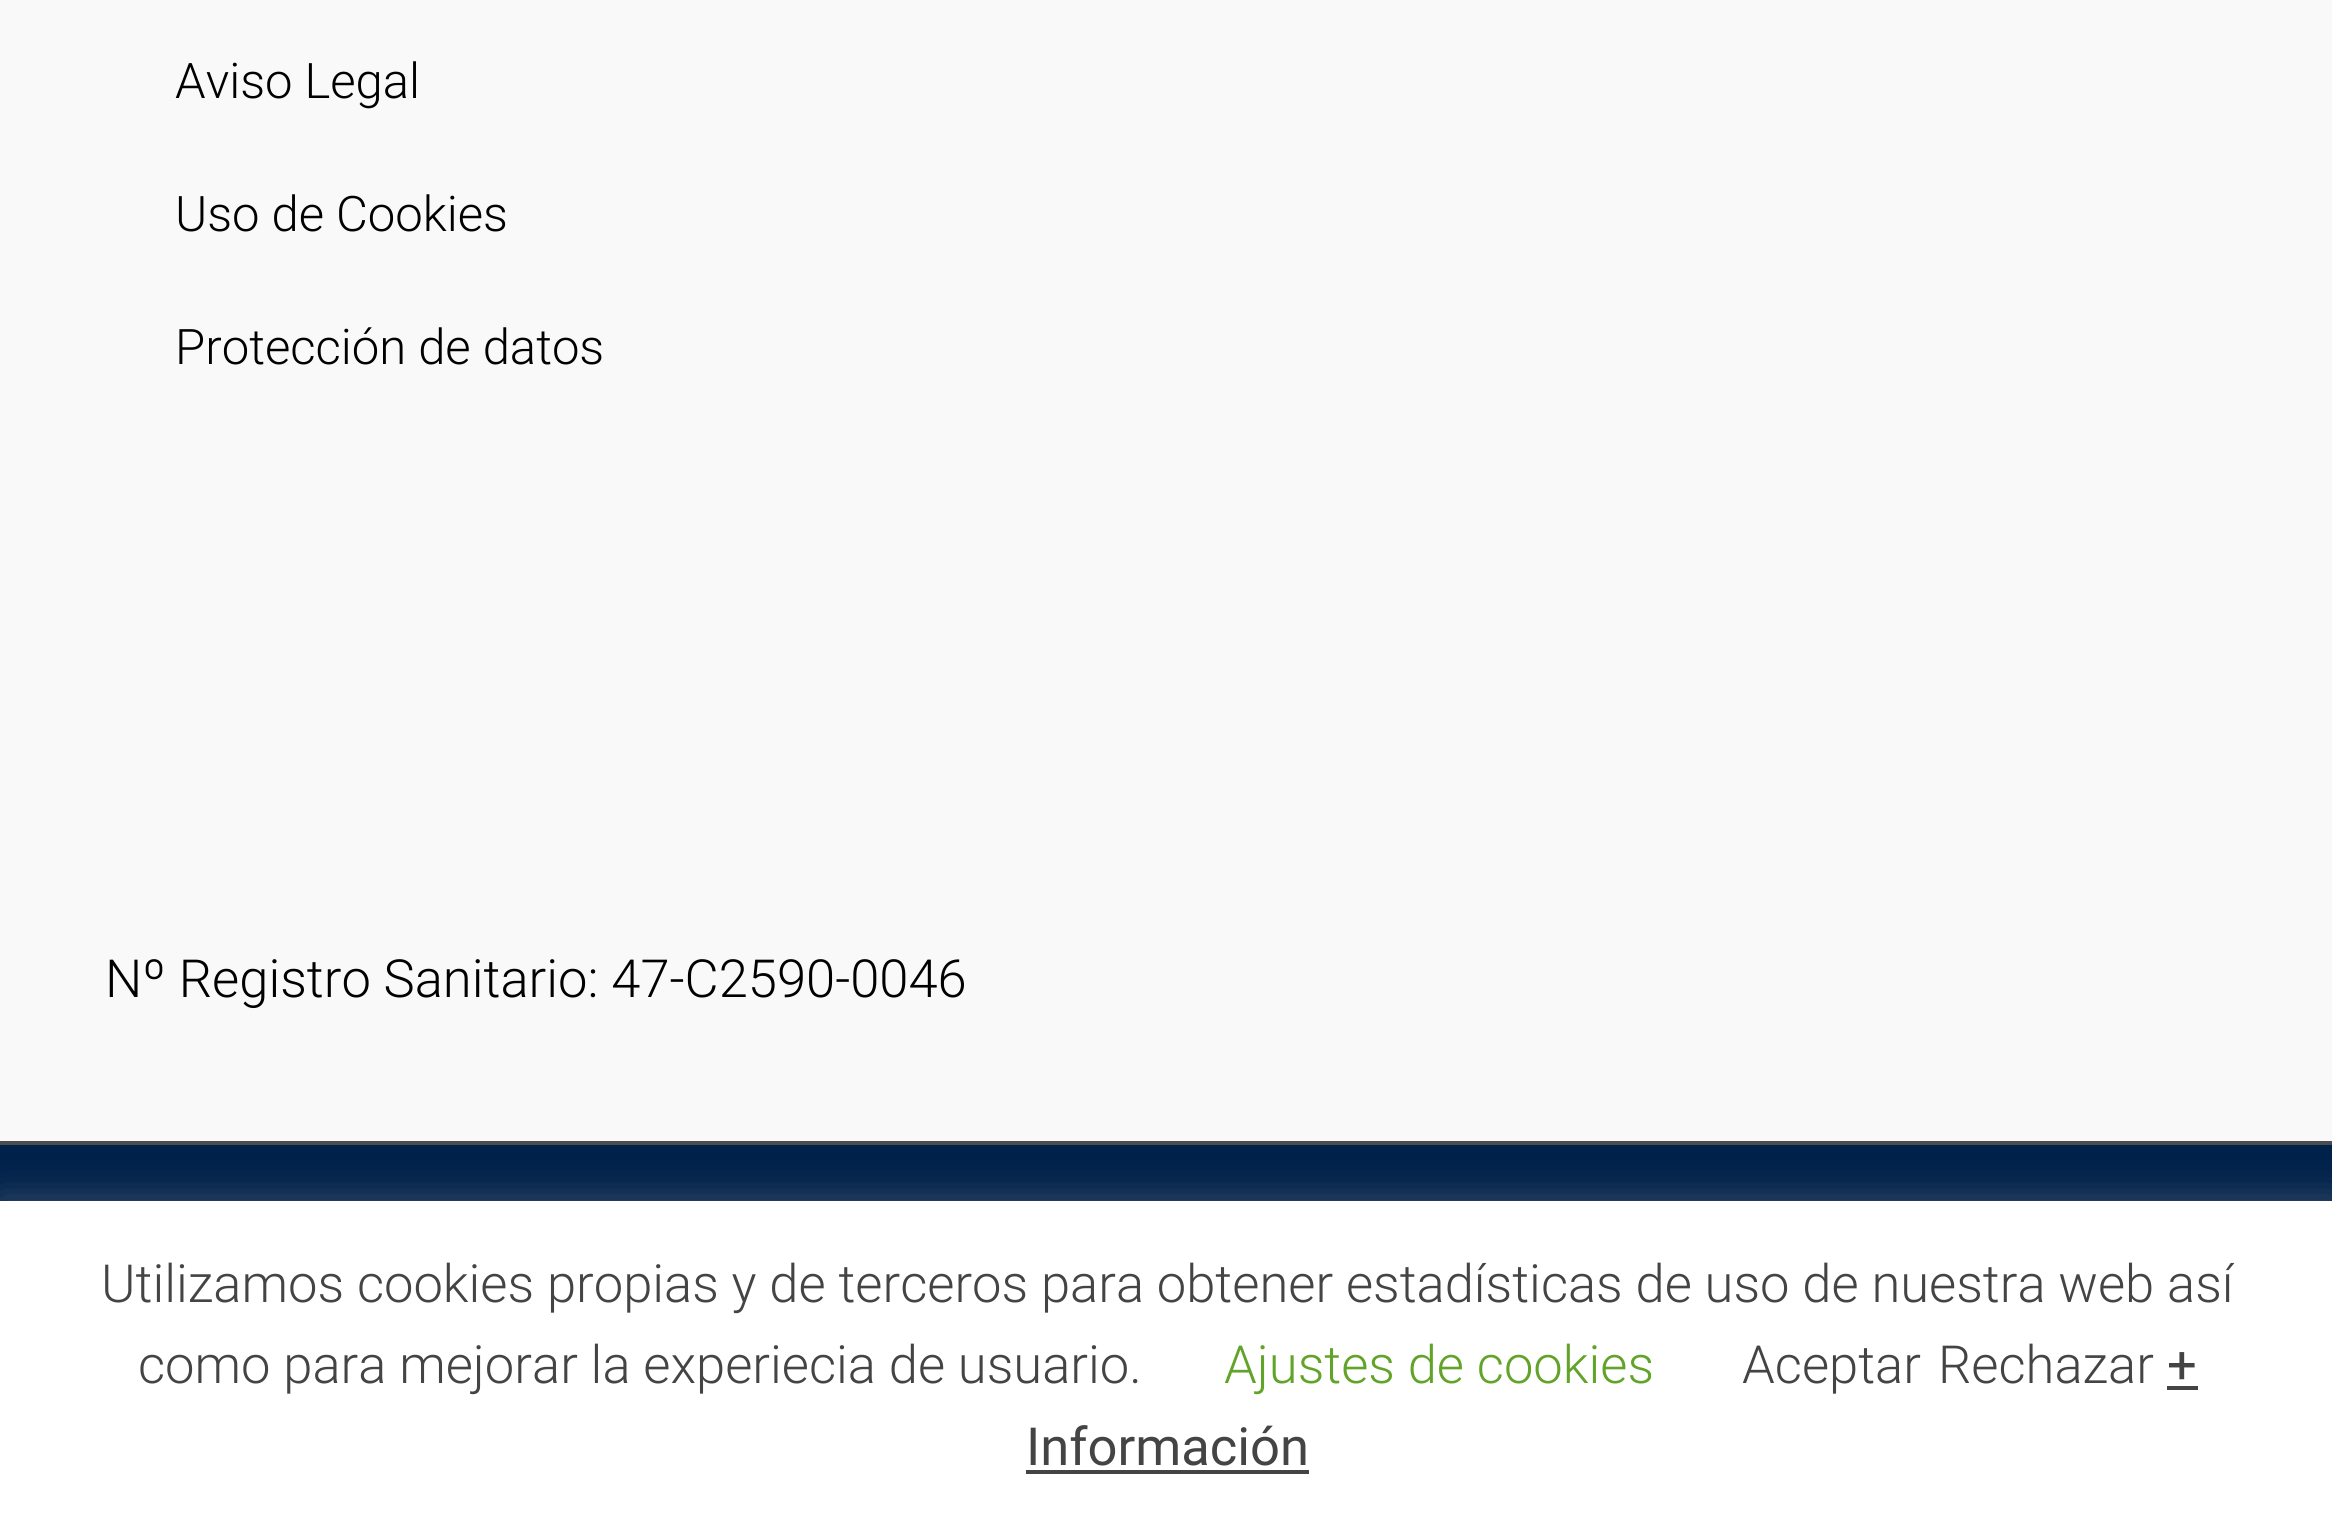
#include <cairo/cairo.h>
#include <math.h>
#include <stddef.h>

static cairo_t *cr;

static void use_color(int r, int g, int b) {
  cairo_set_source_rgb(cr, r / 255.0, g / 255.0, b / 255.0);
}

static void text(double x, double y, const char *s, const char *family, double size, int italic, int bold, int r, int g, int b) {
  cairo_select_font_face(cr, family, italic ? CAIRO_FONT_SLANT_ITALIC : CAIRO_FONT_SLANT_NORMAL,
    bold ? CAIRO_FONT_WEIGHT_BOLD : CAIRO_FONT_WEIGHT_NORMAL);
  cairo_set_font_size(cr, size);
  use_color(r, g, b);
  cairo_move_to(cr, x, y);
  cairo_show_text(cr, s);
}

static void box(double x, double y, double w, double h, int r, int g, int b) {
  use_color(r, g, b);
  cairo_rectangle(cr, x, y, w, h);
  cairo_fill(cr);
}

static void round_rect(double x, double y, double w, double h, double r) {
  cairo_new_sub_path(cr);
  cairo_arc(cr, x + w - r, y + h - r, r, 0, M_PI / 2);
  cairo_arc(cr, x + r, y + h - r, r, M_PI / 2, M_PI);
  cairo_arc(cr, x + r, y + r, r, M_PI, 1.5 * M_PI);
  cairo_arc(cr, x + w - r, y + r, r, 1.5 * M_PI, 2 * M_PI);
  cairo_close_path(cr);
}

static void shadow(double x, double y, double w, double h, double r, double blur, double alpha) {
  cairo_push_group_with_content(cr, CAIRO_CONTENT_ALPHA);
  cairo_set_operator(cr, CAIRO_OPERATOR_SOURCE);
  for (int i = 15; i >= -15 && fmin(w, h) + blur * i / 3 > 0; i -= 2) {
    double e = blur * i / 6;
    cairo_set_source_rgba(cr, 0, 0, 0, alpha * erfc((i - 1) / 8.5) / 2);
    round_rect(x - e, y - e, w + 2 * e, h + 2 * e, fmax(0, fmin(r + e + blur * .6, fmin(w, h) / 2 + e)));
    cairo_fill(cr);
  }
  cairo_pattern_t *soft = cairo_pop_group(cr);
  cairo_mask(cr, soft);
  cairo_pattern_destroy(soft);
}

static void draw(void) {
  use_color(249, 249, 249);
  cairo_paint(cr);
  box(0, 1145, 2332, 56, 0, 33, 74);
  box(0, 1141, 2332, 4, 75, 76, 77);
  use_color(172, 171, 171);
  shadow(0, 1197, 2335, 329, 0, 17.5, 0.3);
  box(0, 1201, 2332, 328, 255, 255, 255);
  box(2167, 1386, 31, 4, 68, 68, 68);
  box(1026, 1470, 283, 4, 68, 68, 68);
  text(175, 98, "Aviso Legal", "Roboto Light", 49, 0, 0, 0, 0, 0);
  text(175, 231, "Uso de Cookies", "Roboto Light", 49, 0, 0, 0, 0, 0);
  text(175, 364, "Protección de datos", "Roboto Light", 49, 0, 0, 0, 0, 0);
  text(105, 997, "Nº Registro Sanitario: 47-C2590-0046", "Roboto Light", 52.5, 0, 0, 0, 0, 0);
  text(101, 1302, "Utilizamos cookies propias y de terceros para obtener estadísticas de uso de nuestra web así", "Roboto Light", 52.5, 0, 0, 68, 68, 68);
  text(138, 1383, "como para mejorar la experiecia de usuario.", "Roboto Light", 52.5, 0, 0, 68, 68, 68);
  text(1224, 1383, "Ajustes de cookies", "Roboto Light", 52.5, 0, 0, 98, 163, 41);
  text(1742, 1383, "Aceptar", "Roboto Light", 52.5, 0, 0, 68, 68, 68);
  text(1938, 1383, "Rechazar", "Roboto Light", 52.5, 0, 0, 68, 68, 68);
  text(2167, 1383, "+", "Roboto", 52.5, 0, 0, 68, 68, 68);
  text(1026, 1465, "Información", "Roboto", 52.5, 0, 0, 68, 68, 68);
}

int main(void) {
  cairo_surface_t *surface = cairo_image_surface_create(CAIRO_FORMAT_RGB24, 2332, 1529);
  cr = cairo_create(surface);
  cairo_font_options_t *options = cairo_font_options_create();
  cairo_font_options_set_hint_metrics(options, CAIRO_HINT_METRICS_OFF);
  cairo_font_options_set_hint_style(options, CAIRO_HINT_STYLE_NONE);
  cairo_set_font_options(cr, options);
  cairo_set_miter_limit(cr, 4);
  draw();
  cairo_surface_write_to_png(surface, "out.png");
  cairo_font_options_destroy(options);
  cairo_destroy(cr);
  cairo_surface_destroy(surface);
  return 0;
}
